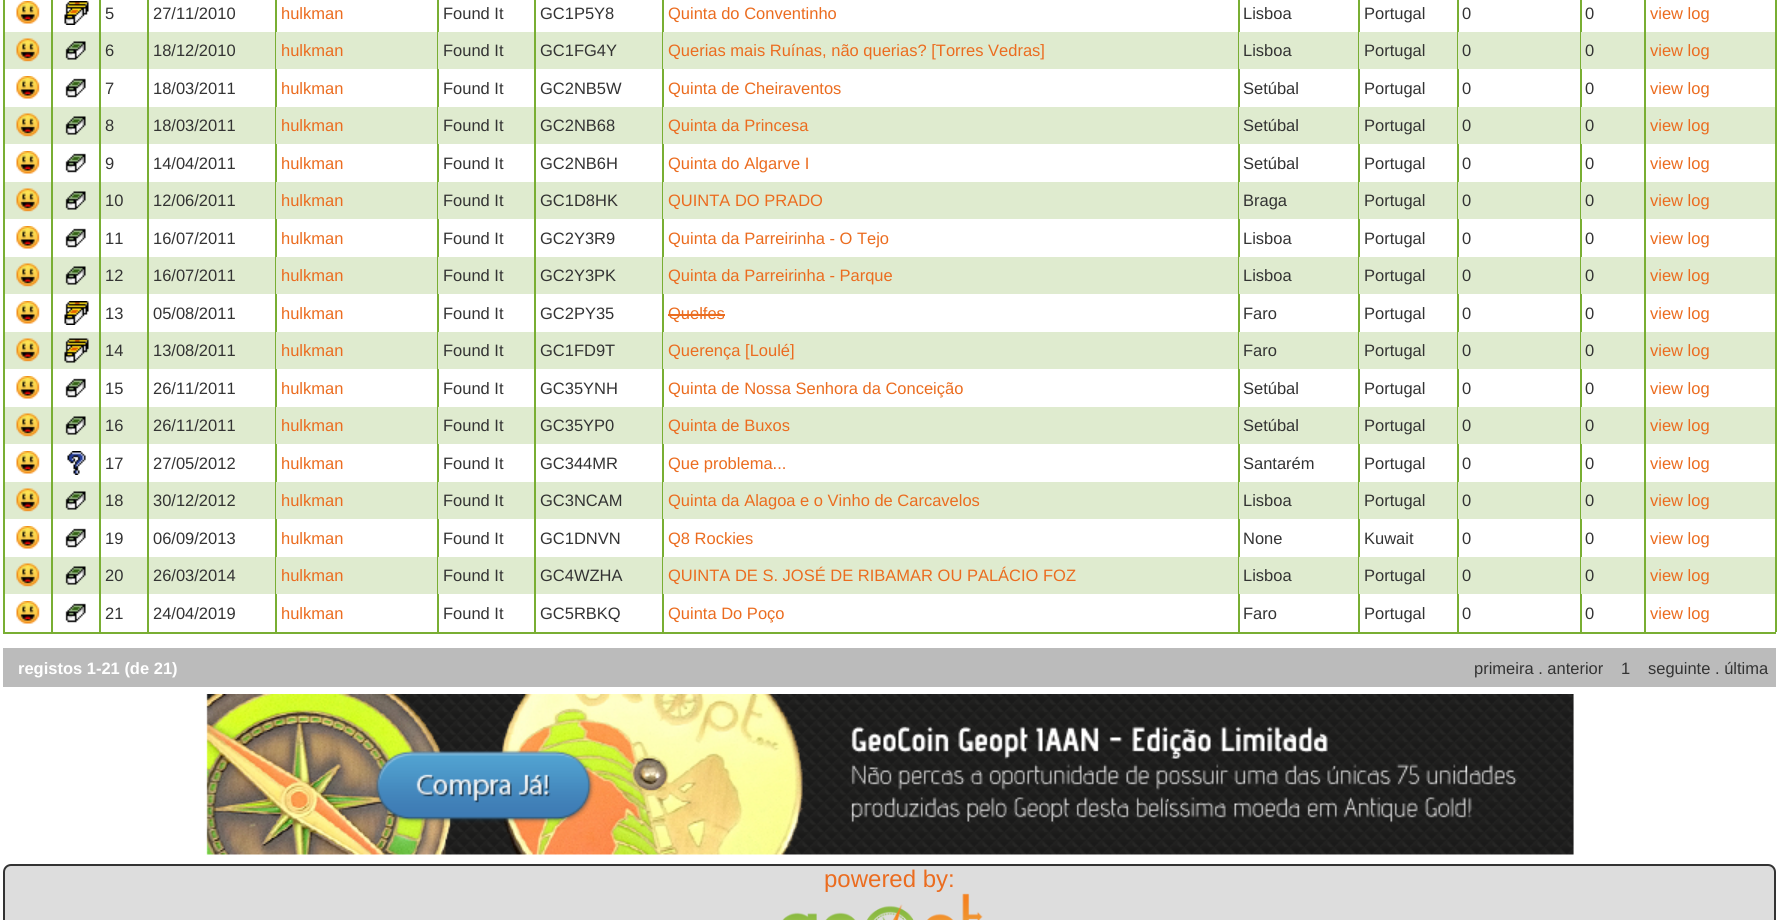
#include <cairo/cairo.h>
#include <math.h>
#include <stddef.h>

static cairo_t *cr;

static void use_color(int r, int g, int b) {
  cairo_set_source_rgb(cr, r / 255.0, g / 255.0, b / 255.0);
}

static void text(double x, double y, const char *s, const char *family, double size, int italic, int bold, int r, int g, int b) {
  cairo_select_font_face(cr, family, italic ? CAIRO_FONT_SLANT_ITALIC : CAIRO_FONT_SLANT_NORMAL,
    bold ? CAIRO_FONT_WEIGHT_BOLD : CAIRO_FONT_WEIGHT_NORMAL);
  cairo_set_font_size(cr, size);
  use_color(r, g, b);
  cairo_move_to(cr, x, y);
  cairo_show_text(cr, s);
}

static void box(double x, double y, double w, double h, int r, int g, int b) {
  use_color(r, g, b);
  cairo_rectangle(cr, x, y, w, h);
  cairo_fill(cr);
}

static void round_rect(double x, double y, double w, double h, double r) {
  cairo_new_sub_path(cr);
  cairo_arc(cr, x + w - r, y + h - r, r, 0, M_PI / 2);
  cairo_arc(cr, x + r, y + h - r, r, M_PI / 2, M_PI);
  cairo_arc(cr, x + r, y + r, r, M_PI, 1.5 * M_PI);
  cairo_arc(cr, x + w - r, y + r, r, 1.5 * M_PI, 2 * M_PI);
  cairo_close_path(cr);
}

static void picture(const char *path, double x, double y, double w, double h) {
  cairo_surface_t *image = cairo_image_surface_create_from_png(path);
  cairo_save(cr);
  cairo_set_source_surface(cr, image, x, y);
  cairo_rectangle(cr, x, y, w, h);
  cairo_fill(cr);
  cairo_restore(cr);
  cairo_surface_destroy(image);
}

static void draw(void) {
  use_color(255, 255, 255);
  cairo_paint(cr);
  box(3, 632, 1773, 2, 121, 174, 51);
  box(3, 0, 2, 633, 121, 174, 51);
  box(51, 0, 2, 557, 121, 174, 51);
  picture("img_01.png", 16, 1, 24, 23);
  box(99, 0, 2, 557, 121, 174, 51);
  picture("img_02.png", 64, 1, 25, 24);
  box(147, 0, 2, 557, 121, 174, 51);
  box(275, 0, 2, 32, 121, 174, 51);
  box(437, 0, 2, 32, 121, 174, 51);
  box(534, 0, 2, 557, 121, 174, 51);
  box(662, 0, 2, 32, 121, 174, 51);
  box(1238, 0, 2, 32, 121, 174, 51);
  box(1358, 0, 2, 32, 121, 174, 51);
  box(1457, 0, 2, 32, 121, 174, 51);
  box(1580, 0, 2, 32, 121, 174, 51);
  box(1644, 0, 2, 557, 121, 174, 51);
  box(1775, 0, 2, 557, 121, 174, 51);
  box(5, 32, 46, 37, 223, 235, 207);
  picture("img_03.png", 16, 38, 24, 24);
  box(53, 32, 46, 37, 223, 235, 207);
  picture("img_04.png", 65, 41, 21, 19);
  box(101, 32, 46, 37, 223, 235, 207);
  box(149, 32, 126, 37, 223, 235, 207);
  box(275, 32, 1, 37, 121, 174, 51);
  box(276, 32, 161, 37, 223, 235, 207);
  box(437, 32, 1, 37, 121, 174, 51);
  box(438, 32, 96, 37, 223, 235, 207);
  box(536, 32, 126, 37, 223, 235, 207);
  box(662, 32, 1, 37, 121, 174, 51);
  box(663, 32, 575, 37, 223, 235, 207);
  box(1238, 32, 1, 37, 121, 174, 51);
  box(1239, 32, 119, 37, 223, 235, 207);
  box(1358, 32, 1, 37, 121, 174, 51);
  box(1359, 32, 98, 37, 223, 235, 207);
  box(1457, 32, 1, 37, 121, 174, 51);
  box(1458, 32, 122, 37, 223, 235, 207);
  box(1580, 32, 1, 37, 121, 174, 51);
  box(1581, 32, 63, 37, 223, 235, 207);
  box(1646, 32, 129, 37, 223, 235, 207);
  picture("img_01.png", 16, 76, 24, 23);
  picture("img_05.png", 65, 78, 21, 20);
  box(275, 69, 2, 38, 121, 174, 51);
  box(437, 69, 2, 38, 121, 174, 51);
  box(662, 69, 2, 38, 121, 174, 51);
  box(1238, 69, 2, 38, 121, 174, 51);
  box(1358, 69, 2, 38, 121, 174, 51);
  box(1457, 69, 2, 38, 121, 174, 51);
  box(1580, 69, 2, 38, 121, 174, 51);
  box(5, 107, 46, 37, 223, 235, 207);
  picture("img_03.png", 16, 113, 24, 24);
  box(53, 107, 46, 37, 223, 235, 207);
  picture("img_04.png", 65, 116, 21, 19);
  box(101, 107, 46, 37, 223, 235, 207);
  box(149, 107, 126, 37, 223, 235, 207);
  box(275, 107, 1, 37, 121, 174, 51);
  box(276, 107, 161, 37, 223, 235, 207);
  box(437, 107, 1, 37, 121, 174, 51);
  box(438, 107, 96, 37, 223, 235, 207);
  box(536, 107, 126, 37, 223, 235, 207);
  box(662, 107, 1, 37, 121, 174, 51);
  box(663, 107, 575, 37, 223, 235, 207);
  box(1238, 107, 1, 37, 121, 174, 51);
  box(1239, 107, 119, 37, 223, 235, 207);
  box(1358, 107, 1, 37, 121, 174, 51);
  box(1359, 107, 98, 37, 223, 235, 207);
  box(1457, 107, 1, 37, 121, 174, 51);
  box(1458, 107, 122, 37, 223, 235, 207);
  box(1580, 107, 1, 37, 121, 174, 51);
  box(1581, 107, 63, 37, 223, 235, 207);
  box(1646, 107, 129, 37, 223, 235, 207);
  picture("img_01.png", 16, 151, 24, 23);
  picture("img_05.png", 65, 153, 21, 20);
  box(275, 144, 2, 38, 121, 174, 51);
  box(437, 144, 2, 38, 121, 174, 51);
  box(662, 144, 2, 38, 121, 174, 51);
  box(1238, 144, 2, 38, 121, 174, 51);
  box(1358, 144, 2, 38, 121, 174, 51);
  box(1457, 144, 2, 38, 121, 174, 51);
  box(1580, 144, 2, 38, 121, 174, 51);
  box(5, 182, 46, 37, 223, 235, 207);
  picture("img_03.png", 16, 188, 24, 24);
  box(53, 182, 46, 37, 223, 235, 207);
  picture("img_04.png", 65, 191, 21, 19);
  box(101, 182, 46, 37, 223, 235, 207);
  box(149, 182, 126, 37, 223, 235, 207);
  box(275, 182, 1, 37, 121, 174, 51);
  box(276, 182, 161, 37, 223, 235, 207);
  box(437, 182, 1, 37, 121, 174, 51);
  box(438, 182, 96, 37, 223, 235, 207);
  box(536, 182, 126, 37, 223, 235, 207);
  box(662, 182, 1, 37, 121, 174, 51);
  box(663, 182, 575, 37, 223, 235, 207);
  box(1238, 182, 1, 37, 121, 174, 51);
  box(1239, 182, 119, 37, 223, 235, 207);
  box(1358, 182, 1, 37, 121, 174, 51);
  box(1359, 182, 98, 37, 223, 235, 207);
  box(1457, 182, 1, 37, 121, 174, 51);
  box(1458, 182, 122, 37, 223, 235, 207);
  box(1580, 182, 1, 37, 121, 174, 51);
  box(1581, 182, 63, 37, 223, 235, 207);
  box(1646, 182, 129, 37, 223, 235, 207);
  picture("img_01.png", 16, 226, 24, 23);
  picture("img_05.png", 65, 228, 21, 20);
  box(275, 219, 2, 38, 121, 174, 51);
  box(437, 219, 2, 38, 121, 174, 51);
  box(662, 219, 2, 38, 121, 174, 51);
  box(1238, 219, 2, 38, 121, 174, 51);
  box(1358, 219, 2, 38, 121, 174, 51);
  box(1457, 219, 2, 38, 121, 174, 51);
  box(1580, 219, 2, 38, 121, 174, 51);
  box(5, 257, 46, 37, 223, 235, 207);
  picture("img_03.png", 16, 263, 24, 24);
  box(53, 257, 46, 37, 223, 235, 207);
  picture("img_04.png", 65, 266, 21, 19);
  box(101, 257, 46, 37, 223, 235, 207);
  box(149, 257, 126, 37, 223, 235, 207);
  box(275, 257, 1, 37, 121, 174, 51);
  box(276, 257, 161, 37, 223, 235, 207);
  box(437, 257, 1, 37, 121, 174, 51);
  box(438, 257, 96, 37, 223, 235, 207);
  box(536, 257, 126, 37, 223, 235, 207);
  box(662, 257, 1, 37, 121, 174, 51);
  box(663, 257, 575, 37, 223, 235, 207);
  box(1238, 257, 1, 37, 121, 174, 51);
  box(1239, 257, 119, 37, 223, 235, 207);
  box(1358, 257, 1, 37, 121, 174, 51);
  box(1359, 257, 98, 37, 223, 235, 207);
  box(1457, 257, 1, 37, 121, 174, 51);
  box(1458, 257, 122, 37, 223, 235, 207);
  box(1580, 257, 1, 37, 121, 174, 51);
  box(1581, 257, 63, 37, 223, 235, 207);
  box(1646, 257, 129, 37, 223, 235, 207);
  picture("img_01.png", 16, 301, 24, 23);
  picture("img_02.png", 64, 301, 25, 24);
  box(275, 294, 2, 38, 121, 174, 51);
  box(437, 294, 2, 38, 121, 174, 51);
  box(662, 294, 2, 38, 121, 174, 51);
  box(1238, 294, 2, 38, 121, 174, 51);
  box(668, 314, 57, 2, 235, 108, 31);
  box(1358, 294, 2, 38, 121, 174, 51);
  box(1457, 294, 2, 38, 121, 174, 51);
  box(1580, 294, 2, 38, 121, 174, 51);
  box(5, 332, 46, 37, 223, 235, 207);
  picture("img_03.png", 16, 338, 24, 24);
  box(53, 332, 46, 37, 223, 235, 207);
  picture("img_06.png", 64, 338, 25, 25);
  box(101, 332, 46, 37, 223, 235, 207);
  box(149, 332, 126, 37, 223, 235, 207);
  box(275, 332, 1, 37, 121, 174, 51);
  box(276, 332, 161, 37, 223, 235, 207);
  box(437, 332, 1, 37, 121, 174, 51);
  box(438, 332, 96, 37, 223, 235, 207);
  box(536, 332, 126, 37, 223, 235, 207);
  box(662, 332, 1, 37, 121, 174, 51);
  box(663, 332, 575, 37, 223, 235, 207);
  box(1238, 332, 1, 37, 121, 174, 51);
  box(1239, 332, 119, 37, 223, 235, 207);
  box(1358, 332, 1, 37, 121, 174, 51);
  box(1359, 332, 98, 37, 223, 235, 207);
  box(1457, 332, 1, 37, 121, 174, 51);
  box(1458, 332, 122, 37, 223, 235, 207);
  box(1580, 332, 1, 37, 121, 174, 51);
  box(1581, 332, 63, 37, 223, 235, 207);
  box(1646, 332, 129, 37, 223, 235, 207);
  picture("img_01.png", 16, 376, 24, 23);
  picture("img_05.png", 65, 378, 21, 20);
  box(275, 369, 2, 38, 121, 174, 51);
  box(437, 369, 2, 38, 121, 174, 51);
  box(662, 369, 2, 38, 121, 174, 51);
  box(1238, 369, 2, 38, 121, 174, 51);
  box(1358, 369, 2, 38, 121, 174, 51);
  box(1457, 369, 2, 38, 121, 174, 51);
  box(1580, 369, 2, 38, 121, 174, 51);
  box(5, 407, 46, 37, 223, 235, 207);
  picture("img_03.png", 16, 413, 24, 24);
  box(53, 407, 46, 37, 223, 235, 207);
  picture("img_04.png", 65, 416, 21, 19);
  box(101, 407, 46, 37, 223, 235, 207);
  box(149, 407, 126, 37, 223, 235, 207);
  box(275, 407, 1, 37, 121, 174, 51);
  box(276, 407, 161, 37, 223, 235, 207);
  box(437, 407, 1, 37, 121, 174, 51);
  box(438, 407, 96, 37, 223, 235, 207);
  box(536, 407, 126, 37, 223, 235, 207);
  box(662, 407, 1, 37, 121, 174, 51);
  box(663, 407, 575, 37, 223, 235, 207);
  box(1238, 407, 1, 37, 121, 174, 51);
  box(1239, 407, 119, 37, 223, 235, 207);
  box(1358, 407, 1, 37, 121, 174, 51);
  box(1359, 407, 98, 37, 223, 235, 207);
  box(1457, 407, 1, 37, 121, 174, 51);
  box(1458, 407, 122, 37, 223, 235, 207);
  box(1580, 407, 1, 37, 121, 174, 51);
  box(1581, 407, 63, 37, 223, 235, 207);
  box(1646, 407, 129, 37, 223, 235, 207);
  picture("img_01.png", 16, 451, 24, 23);
  picture("img_07.png", 67, 451, 19, 24);
  box(275, 444, 2, 38, 121, 174, 51);
  box(437, 444, 2, 38, 121, 174, 51);
  box(662, 444, 2, 38, 121, 174, 51);
  box(1238, 444, 2, 38, 121, 174, 51);
  box(1358, 444, 2, 38, 121, 174, 51);
  box(1457, 444, 2, 38, 121, 174, 51);
  box(1580, 444, 2, 38, 121, 174, 51);
  box(5, 482, 46, 37, 223, 235, 207);
  picture("img_03.png", 16, 488, 24, 24);
  box(53, 482, 46, 37, 223, 235, 207);
  picture("img_04.png", 65, 491, 21, 19);
  box(101, 482, 46, 37, 223, 235, 207);
  box(149, 482, 126, 37, 223, 235, 207);
  box(275, 482, 1, 37, 121, 174, 51);
  box(276, 482, 161, 37, 223, 235, 207);
  box(437, 482, 1, 37, 121, 174, 51);
  box(438, 482, 96, 37, 223, 235, 207);
  box(536, 482, 126, 37, 223, 235, 207);
  box(662, 482, 1, 37, 121, 174, 51);
  box(663, 482, 575, 37, 223, 235, 207);
  box(1238, 482, 1, 37, 121, 174, 51);
  box(1239, 482, 119, 37, 223, 235, 207);
  box(1358, 482, 1, 37, 121, 174, 51);
  box(1359, 482, 98, 37, 223, 235, 207);
  box(1457, 482, 1, 37, 121, 174, 51);
  box(1458, 482, 122, 37, 223, 235, 207);
  box(1580, 482, 1, 37, 121, 174, 51);
  box(1581, 482, 63, 37, 223, 235, 207);
  box(1646, 482, 129, 37, 223, 235, 207);
  picture("img_01.png", 16, 526, 24, 23);
  picture("img_05.png", 65, 528, 21, 20);
  box(275, 519, 2, 38, 121, 174, 51);
  box(437, 519, 2, 38, 121, 174, 51);
  box(662, 519, 2, 38, 121, 174, 51);
  box(1238, 519, 2, 38, 121, 174, 51);
  box(1358, 519, 2, 38, 121, 174, 51);
  box(1457, 519, 2, 38, 121, 174, 51);
  box(1580, 519, 2, 38, 121, 174, 51);
  box(5, 557, 46, 37, 223, 235, 207);
  box(51, 557, 2, 75, 121, 174, 51);
  picture("img_03.png", 16, 563, 24, 24);
  box(53, 557, 46, 37, 223, 235, 207);
  box(99, 557, 2, 75, 121, 174, 51);
  picture("img_04.png", 65, 566, 21, 19);
  box(101, 557, 46, 37, 223, 235, 207);
  box(147, 557, 2, 75, 121, 174, 51);
  box(149, 557, 126, 37, 223, 235, 207);
  box(275, 557, 1, 37, 121, 174, 51);
  box(276, 557, 161, 37, 223, 235, 207);
  box(437, 557, 1, 37, 121, 174, 51);
  box(438, 557, 96, 37, 223, 235, 207);
  box(534, 557, 2, 75, 121, 174, 51);
  box(536, 557, 126, 37, 223, 235, 207);
  box(662, 557, 1, 37, 121, 174, 51);
  box(663, 557, 575, 37, 223, 235, 207);
  box(1238, 557, 1, 37, 121, 174, 51);
  box(1239, 557, 119, 37, 223, 235, 207);
  box(1358, 557, 1, 37, 121, 174, 51);
  box(1359, 557, 98, 37, 223, 235, 207);
  box(1457, 557, 1, 37, 121, 174, 51);
  box(1458, 557, 122, 37, 223, 235, 207);
  box(1580, 557, 1, 37, 121, 174, 51);
  box(1581, 557, 63, 37, 223, 235, 207);
  box(1644, 557, 2, 75, 121, 174, 51);
  box(1646, 557, 129, 37, 223, 235, 207);
  box(1775, 557, 2, 75, 121, 174, 51);
  picture("img_01.png", 16, 601, 24, 23);
  picture("img_05.png", 65, 603, 21, 20);
  box(275, 594, 2, 38, 121, 174, 51);
  box(437, 594, 2, 38, 121, 174, 51);
  box(662, 594, 2, 38, 121, 174, 51);
  box(1238, 594, 2, 38, 121, 174, 51);
  box(1358, 594, 2, 38, 121, 174, 51);
  box(1457, 594, 2, 38, 121, 174, 51);
  box(1580, 594, 2, 38, 121, 174, 51);
  box(3, 648, 1773, 39, 187, 187, 187);
  picture("img_08.png", 206, 694, 1368, 161);
  use_color(221, 221, 221);
  round_rect(4, 865, 1771, 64, 7);
  cairo_fill_preserve(cr);
  use_color(51, 51, 51);
  cairo_stroke(cr);
  picture("img_09.png", 782, 893, 201, 27);
  text(105, 19, "5", "Liberation Sans", 16.5, 0, 0, 51, 51, 51);
  text(153, 19, "27/11/2010", "Liberation Sans", 16.5, 0, 0, 51, 51, 51);
  text(281, 19, "hulkman", "Liberation Sans", 16.5, 0, 0, 235, 108, 31);
  text(443, 19, "Found It", "Liberation Sans", 16.5, 0, 0, 51, 51, 51);
  text(540, 19, "GC1P5Y8", "Liberation Sans", 16.5, 0, 0, 51, 51, 51);
  text(668, 19, "Quinta do Conventinho", "Liberation Sans", 16.5, 0, 0, 235, 108, 31);
  text(1243, 19, "Lisboa", "Liberation Sans", 16.5, 0, 0, 51, 51, 51);
  text(1364, 19, "Portugal", "Liberation Sans", 16.5, 0, 0, 51, 51, 51);
  text(1462, 19, "0", "Liberation Sans", 16.5, 0, 0, 51, 51, 51);
  text(1585, 19, "0", "Liberation Sans", 16.5, 0, 0, 51, 51, 51);
  text(1650, 19, "view log", "Liberation Sans", 16.5, 0, 0, 235, 108, 31);
  text(105, 56, "6", "Liberation Sans", 16.5, 0, 0, 51, 51, 51);
  text(153, 56, "18/12/2010", "Liberation Sans", 16.5, 0, 0, 51, 51, 51);
  text(281, 56, "hulkman", "Liberation Sans", 16.5, 0, 0, 235, 108, 31);
  text(443, 56, "Found It", "Liberation Sans", 16.5, 0, 0, 51, 51, 51);
  text(540, 56, "GC1FG4Y", "Liberation Sans", 16.5, 0, 0, 51, 51, 51);
  text(668, 56, "Querias mais Ruínas, não querias? [Torres Vedras]", "Liberation Sans", 16.5, 0, 0, 235, 108, 31);
  text(1243, 56, "Lisboa", "Liberation Sans", 16.5, 0, 0, 51, 51, 51);
  text(1364, 56, "Portugal", "Liberation Sans", 16.5, 0, 0, 51, 51, 51);
  text(1462, 56, "0", "Liberation Sans", 16.5, 0, 0, 51, 51, 51);
  text(1585, 56, "0", "Liberation Sans", 16.5, 0, 0, 51, 51, 51);
  text(1650, 56, "view log", "Liberation Sans", 16.5, 0, 0, 235, 108, 31);
  text(105, 94, "7", "Liberation Sans", 16.5, 0, 0, 51, 51, 51);
  text(153, 94, "18/03/2011", "Liberation Sans", 16.5, 0, 0, 51, 51, 51);
  text(281, 94, "hulkman", "Liberation Sans", 16.5, 0, 0, 235, 108, 31);
  text(443, 94, "Found It", "Liberation Sans", 16.5, 0, 0, 51, 51, 51);
  text(540, 94, "GC2NB5W", "Liberation Sans", 16.5, 0, 0, 51, 51, 51);
  text(668, 94, "Quinta de Cheiraventos", "Liberation Sans", 16.5, 0, 0, 235, 108, 31);
  text(1243, 94, "Setúbal", "Liberation Sans", 16.5, 0, 0, 51, 51, 51);
  text(1364, 94, "Portugal", "Liberation Sans", 16.5, 0, 0, 51, 51, 51);
  text(1462, 94, "0", "Liberation Sans", 16.5, 0, 0, 51, 51, 51);
  text(1585, 94, "0", "Liberation Sans", 16.5, 0, 0, 51, 51, 51);
  text(1650, 94, "view log", "Liberation Sans", 16.5, 0, 0, 235, 108, 31);
  text(105, 131, "8", "Liberation Sans", 16.5, 0, 0, 51, 51, 51);
  text(153, 131, "18/03/2011", "Liberation Sans", 16.5, 0, 0, 51, 51, 51);
  text(281, 131, "hulkman", "Liberation Sans", 16.5, 0, 0, 235, 108, 31);
  text(443, 131, "Found It", "Liberation Sans", 16.5, 0, 0, 51, 51, 51);
  text(540, 131, "GC2NB68", "Liberation Sans", 16.5, 0, 0, 51, 51, 51);
  text(668, 131, "Quinta da Princesa", "Liberation Sans", 16.5, 0, 0, 235, 108, 31);
  text(1243, 131, "Setúbal", "Liberation Sans", 16.5, 0, 0, 51, 51, 51);
  text(1364, 131, "Portugal", "Liberation Sans", 16.5, 0, 0, 51, 51, 51);
  text(1462, 131, "0", "Liberation Sans", 16.5, 0, 0, 51, 51, 51);
  text(1585, 131, "0", "Liberation Sans", 16.5, 0, 0, 51, 51, 51);
  text(1650, 131, "view log", "Liberation Sans", 16.5, 0, 0, 235, 108, 31);
  text(105, 169, "9", "Liberation Sans", 16.5, 0, 0, 51, 51, 51);
  text(153, 169, "14/04/2011", "Liberation Sans", 16.5, 0, 0, 51, 51, 51);
  text(281, 169, "hulkman", "Liberation Sans", 16.5, 0, 0, 235, 108, 31);
  text(443, 169, "Found It", "Liberation Sans", 16.5, 0, 0, 51, 51, 51);
  text(540, 169, "GC2NB6H", "Liberation Sans", 16.5, 0, 0, 51, 51, 51);
  text(668, 169, "Quinta do Algarve I", "Liberation Sans", 16.5, 0, 0, 235, 108, 31);
  text(1243, 169, "Setúbal", "Liberation Sans", 16.5, 0, 0, 51, 51, 51);
  text(1364, 169, "Portugal", "Liberation Sans", 16.5, 0, 0, 51, 51, 51);
  text(1462, 169, "0", "Liberation Sans", 16.5, 0, 0, 51, 51, 51);
  text(1585, 169, "0", "Liberation Sans", 16.5, 0, 0, 51, 51, 51);
  text(1650, 169, "view log", "Liberation Sans", 16.5, 0, 0, 235, 108, 31);
  text(105, 206, "10", "Liberation Sans", 16.5, 0, 0, 51, 51, 51);
  text(153, 206, "12/06/2011", "Liberation Sans", 16.5, 0, 0, 51, 51, 51);
  text(281, 206, "hulkman", "Liberation Sans", 16.5, 0, 0, 235, 108, 31);
  text(443, 206, "Found It", "Liberation Sans", 16.5, 0, 0, 51, 51, 51);
  text(540, 206, "GC1D8HK", "Liberation Sans", 16.5, 0, 0, 51, 51, 51);
  text(668, 206, "QUINTA DO PRADO", "Liberation Sans", 16.5, 0, 0, 235, 108, 31);
  text(1243, 206, "Braga", "Liberation Sans", 16.5, 0, 0, 51, 51, 51);
  text(1364, 206, "Portugal", "Liberation Sans", 16.5, 0, 0, 51, 51, 51);
  text(1462, 206, "0", "Liberation Sans", 16.5, 0, 0, 51, 51, 51);
  text(1585, 206, "0", "Liberation Sans", 16.5, 0, 0, 51, 51, 51);
  text(1650, 206, "view log", "Liberation Sans", 16.5, 0, 0, 235, 108, 31);
  text(105, 244, "11", "Liberation Sans", 16.5, 0, 0, 51, 51, 51);
  text(153, 244, "16/07/2011", "Liberation Sans", 16.5, 0, 0, 51, 51, 51);
  text(281, 244, "hulkman", "Liberation Sans", 16.5, 0, 0, 235, 108, 31);
  text(443, 244, "Found It", "Liberation Sans", 16.5, 0, 0, 51, 51, 51);
  text(540, 244, "GC2Y3R9", "Liberation Sans", 16.5, 0, 0, 51, 51, 51);
  text(668, 244, "Quinta da Parreirinha - O Tejo", "Liberation Sans", 16.5, 0, 0, 235, 108, 31);
  text(1243, 244, "Lisboa", "Liberation Sans", 16.5, 0, 0, 51, 51, 51);
  text(1364, 244, "Portugal", "Liberation Sans", 16.5, 0, 0, 51, 51, 51);
  text(1462, 244, "0", "Liberation Sans", 16.5, 0, 0, 51, 51, 51);
  text(1585, 244, "0", "Liberation Sans", 16.5, 0, 0, 51, 51, 51);
  text(1650, 244, "view log", "Liberation Sans", 16.5, 0, 0, 235, 108, 31);
  text(105, 281, "12", "Liberation Sans", 16.5, 0, 0, 51, 51, 51);
  text(153, 281, "16/07/2011", "Liberation Sans", 16.5, 0, 0, 51, 51, 51);
  text(281, 281, "hulkman", "Liberation Sans", 16.5, 0, 0, 235, 108, 31);
  text(443, 281, "Found It", "Liberation Sans", 16.5, 0, 0, 51, 51, 51);
  text(540, 281, "GC2Y3PK", "Liberation Sans", 16.5, 0, 0, 51, 51, 51);
  text(668, 281, "Quinta da Parreirinha - Parque", "Liberation Sans", 16.5, 0, 0, 235, 108, 31);
  text(1243, 281, "Lisboa", "Liberation Sans", 16.5, 0, 0, 51, 51, 51);
  text(1364, 281, "Portugal", "Liberation Sans", 16.5, 0, 0, 51, 51, 51);
  text(1462, 281, "0", "Liberation Sans", 16.5, 0, 0, 51, 51, 51);
  text(1585, 281, "0", "Liberation Sans", 16.5, 0, 0, 51, 51, 51);
  text(1650, 281, "view log", "Liberation Sans", 16.5, 0, 0, 235, 108, 31);
  text(105, 319, "13", "Liberation Sans", 16.5, 0, 0, 51, 51, 51);
  text(153, 319, "05/08/2011", "Liberation Sans", 16.5, 0, 0, 51, 51, 51);
  text(281, 319, "hulkman", "Liberation Sans", 16.5, 0, 0, 235, 108, 31);
  text(443, 319, "Found It", "Liberation Sans", 16.5, 0, 0, 51, 51, 51);
  text(540, 319, "GC2PY35", "Liberation Sans", 16.5, 0, 0, 51, 51, 51);
  text(668, 319, "Quelfes", "Liberation Sans", 16.5, 0, 0, 235, 108, 31);
  text(1243, 319, "Faro", "Liberation Sans", 16.5, 0, 0, 51, 51, 51);
  text(1364, 319, "Portugal", "Liberation Sans", 16.5, 0, 0, 51, 51, 51);
  text(1462, 319, "0", "Liberation Sans", 16.5, 0, 0, 51, 51, 51);
  text(1585, 319, "0", "Liberation Sans", 16.5, 0, 0, 51, 51, 51);
  text(1650, 319, "view log", "Liberation Sans", 16.5, 0, 0, 235, 108, 31);
  text(105, 356, "14", "Liberation Sans", 16.5, 0, 0, 51, 51, 51);
  text(153, 356, "13/08/2011", "Liberation Sans", 16.5, 0, 0, 51, 51, 51);
  text(281, 356, "hulkman", "Liberation Sans", 16.5, 0, 0, 235, 108, 31);
  text(443, 356, "Found It", "Liberation Sans", 16.5, 0, 0, 51, 51, 51);
  text(540, 356, "GC1FD9T", "Liberation Sans", 16.5, 0, 0, 51, 51, 51);
  text(668, 356, "Querença [Loulé]", "Liberation Sans", 16.5, 0, 0, 235, 108, 31);
  text(1243, 356, "Faro", "Liberation Sans", 16.5, 0, 0, 51, 51, 51);
  text(1364, 356, "Portugal", "Liberation Sans", 16.5, 0, 0, 51, 51, 51);
  text(1462, 356, "0", "Liberation Sans", 16.5, 0, 0, 51, 51, 51);
  text(1585, 356, "0", "Liberation Sans", 16.5, 0, 0, 51, 51, 51);
  text(1650, 356, "view log", "Liberation Sans", 16.5, 0, 0, 235, 108, 31);
  text(105, 394, "15", "Liberation Sans", 16.5, 0, 0, 51, 51, 51);
  text(153, 394, "26/11/2011", "Liberation Sans", 16.5, 0, 0, 51, 51, 51);
  text(281, 394, "hulkman", "Liberation Sans", 16.5, 0, 0, 235, 108, 31);
  text(443, 394, "Found It", "Liberation Sans", 16.5, 0, 0, 51, 51, 51);
  text(540, 394, "GC35YNH", "Liberation Sans", 16.5, 0, 0, 51, 51, 51);
  text(668, 394, "Quinta de Nossa Senhora da Conceição", "Liberation Sans", 16.5, 0, 0, 235, 108, 31);
  text(1243, 394, "Setúbal", "Liberation Sans", 16.5, 0, 0, 51, 51, 51);
  text(1364, 394, "Portugal", "Liberation Sans", 16.5, 0, 0, 51, 51, 51);
  text(1462, 394, "0", "Liberation Sans", 16.5, 0, 0, 51, 51, 51);
  text(1585, 394, "0", "Liberation Sans", 16.5, 0, 0, 51, 51, 51);
  text(1650, 394, "view log", "Liberation Sans", 16.5, 0, 0, 235, 108, 31);
  text(105, 431, "16", "Liberation Sans", 16.5, 0, 0, 51, 51, 51);
  text(153, 431, "26/11/2011", "Liberation Sans", 16.5, 0, 0, 51, 51, 51);
  text(281, 431, "hulkman", "Liberation Sans", 16.5, 0, 0, 235, 108, 31);
  text(443, 431, "Found It", "Liberation Sans", 16.5, 0, 0, 51, 51, 51);
  text(540, 431, "GC35YP0", "Liberation Sans", 16.5, 0, 0, 51, 51, 51);
  text(668, 431, "Quinta de Buxos", "Liberation Sans", 16.5, 0, 0, 235, 108, 31);
  text(1243, 431, "Setúbal", "Liberation Sans", 16.5, 0, 0, 51, 51, 51);
  text(1364, 431, "Portugal", "Liberation Sans", 16.5, 0, 0, 51, 51, 51);
  text(1462, 431, "0", "Liberation Sans", 16.5, 0, 0, 51, 51, 51);
  text(1585, 431, "0", "Liberation Sans", 16.5, 0, 0, 51, 51, 51);
  text(1650, 431, "view log", "Liberation Sans", 16.5, 0, 0, 235, 108, 31);
  text(105, 469, "17", "Liberation Sans", 16.5, 0, 0, 51, 51, 51);
  text(153, 469, "27/05/2012", "Liberation Sans", 16.5, 0, 0, 51, 51, 51);
  text(281, 469, "hulkman", "Liberation Sans", 16.5, 0, 0, 235, 108, 31);
  text(443, 469, "Found It", "Liberation Sans", 16.5, 0, 0, 51, 51, 51);
  text(540, 469, "GC344MR", "Liberation Sans", 16.5, 0, 0, 51, 51, 51);
  text(668, 469, "Que problema...", "Liberation Sans", 16.5, 0, 0, 235, 108, 31);
  text(1243, 469, "Santarém", "Liberation Sans", 16.5, 0, 0, 51, 51, 51);
  text(1364, 469, "Portugal", "Liberation Sans", 16.5, 0, 0, 51, 51, 51);
  text(1462, 469, "0", "Liberation Sans", 16.5, 0, 0, 51, 51, 51);
  text(1585, 469, "0", "Liberation Sans", 16.5, 0, 0, 51, 51, 51);
  text(1650, 469, "view log", "Liberation Sans", 16.5, 0, 0, 235, 108, 31);
  text(105, 506, "18", "Liberation Sans", 16.5, 0, 0, 51, 51, 51);
  text(153, 506, "30/12/2012", "Liberation Sans", 16.5, 0, 0, 51, 51, 51);
  text(281, 506, "hulkman", "Liberation Sans", 16.5, 0, 0, 235, 108, 31);
  text(443, 506, "Found It", "Liberation Sans", 16.5, 0, 0, 51, 51, 51);
  text(540, 506, "GC3NCAM", "Liberation Sans", 16.5, 0, 0, 51, 51, 51);
  text(668, 506, "Quinta da Alagoa e o Vinho de Carcavelos", "Liberation Sans", 16.5, 0, 0, 235, 108, 31);
  text(1243, 506, "Lisboa", "Liberation Sans", 16.5, 0, 0, 51, 51, 51);
  text(1364, 506, "Portugal", "Liberation Sans", 16.5, 0, 0, 51, 51, 51);
  text(1462, 506, "0", "Liberation Sans", 16.5, 0, 0, 51, 51, 51);
  text(1585, 506, "0", "Liberation Sans", 16.5, 0, 0, 51, 51, 51);
  text(1650, 506, "view log", "Liberation Sans", 16.5, 0, 0, 235, 108, 31);
  text(105, 544, "19", "Liberation Sans", 16.5, 0, 0, 51, 51, 51);
  text(153, 544, "06/09/2013", "Liberation Sans", 16.5, 0, 0, 51, 51, 51);
  text(281, 544, "hulkman", "Liberation Sans", 16.5, 0, 0, 235, 108, 31);
  text(443, 544, "Found It", "Liberation Sans", 16.5, 0, 0, 51, 51, 51);
  text(540, 544, "GC1DNVN", "Liberation Sans", 16.5, 0, 0, 51, 51, 51);
  text(668, 544, "Q8 Rockies", "Liberation Sans", 16.5, 0, 0, 235, 108, 31);
  text(1243, 544, "None", "Liberation Sans", 16.5, 0, 0, 51, 51, 51);
  text(1364, 544, "Kuwait", "Liberation Sans", 16.5, 0, 0, 51, 51, 51);
  text(1462, 544, "0", "Liberation Sans", 16.5, 0, 0, 51, 51, 51);
  text(1585, 544, "0", "Liberation Sans", 16.5, 0, 0, 51, 51, 51);
  text(1650, 544, "view log", "Liberation Sans", 16.5, 0, 0, 235, 108, 31);
  text(105, 581, "20", "Liberation Sans", 16.5, 0, 0, 51, 51, 51);
  text(153, 581, "26/03/2014", "Liberation Sans", 16.5, 0, 0, 51, 51, 51);
  text(281, 581, "hulkman", "Liberation Sans", 16.5, 0, 0, 235, 108, 31);
  text(443, 581, "Found It", "Liberation Sans", 16.5, 0, 0, 51, 51, 51);
  text(540, 581, "GC4WZHA", "Liberation Sans", 16.5, 0, 0, 51, 51, 51);
  text(668, 581, "QUINTA DE S. JOSÉ DE RIBAMAR OU PALÁCIO FOZ", "Liberation Sans", 16.5, 0, 0, 235, 108, 31);
  text(1243, 581, "Lisboa", "Liberation Sans", 16.5, 0, 0, 51, 51, 51);
  text(1364, 581, "Portugal", "Liberation Sans", 16.5, 0, 0, 51, 51, 51);
  text(1462, 581, "0", "Liberation Sans", 16.5, 0, 0, 51, 51, 51);
  text(1585, 581, "0", "Liberation Sans", 16.5, 0, 0, 51, 51, 51);
  text(1650, 581, "view log", "Liberation Sans", 16.5, 0, 0, 235, 108, 31);
  text(105, 619, "21", "Liberation Sans", 16.5, 0, 0, 51, 51, 51);
  text(153, 619, "24/04/2019", "Liberation Sans", 16.5, 0, 0, 51, 51, 51);
  text(281, 619, "hulkman", "Liberation Sans", 16.5, 0, 0, 235, 108, 31);
  text(443, 619, "Found It", "Liberation Sans", 16.5, 0, 0, 51, 51, 51);
  text(540, 619, "GC5RBKQ", "Liberation Sans", 16.5, 0, 0, 51, 51, 51);
  text(668, 619, "Quinta Do Poço", "Liberation Sans", 16.5, 0, 0, 235, 108, 31);
  text(1243, 619, "Faro", "Liberation Sans", 16.5, 0, 0, 51, 51, 51);
  text(1364, 619, "Portugal", "Liberation Sans", 16.5, 0, 0, 51, 51, 51);
  text(1462, 619, "0", "Liberation Sans", 16.5, 0, 0, 51, 51, 51);
  text(1585, 619, "0", "Liberation Sans", 16.5, 0, 0, 51, 51, 51);
  text(1650, 619, "view log", "Liberation Sans", 16.5, 0, 0, 235, 108, 31);
  text(18, 674, "registos 1-21 (de 21)", "Liberation Sans", 16.5, 0, 1, 255, 255, 255);
  text(1474, 674, "primeira . anterior", "Liberation Sans", 16.5, 0, 0, 51, 51, 51);
  text(1621, 674, "1", "Liberation Sans", 16.5, 0, 0, 51, 51, 51);
  text(1648, 674, "seguinte . última", "Liberation Sans", 16.5, 0, 0, 51, 51, 51);
  text(824, 887, "powered by:", "Liberation Sans", 24, 0, 0, 235, 108, 31);
}

int main(void) {
  cairo_surface_t *surface = cairo_image_surface_create(CAIRO_FORMAT_RGB24, 1790, 920);
  cr = cairo_create(surface);
  cairo_font_options_t *options = cairo_font_options_create();
  cairo_font_options_set_hint_metrics(options, CAIRO_HINT_METRICS_OFF);
  cairo_font_options_set_hint_style(options, CAIRO_HINT_STYLE_NONE);
  cairo_set_font_options(cr, options);
  cairo_set_miter_limit(cr, 4);
  draw();
  cairo_surface_write_to_png(surface, "out.png");
  cairo_font_options_destroy(options);
  cairo_destroy(cr);
  cairo_surface_destroy(surface);
  return 0;
}
